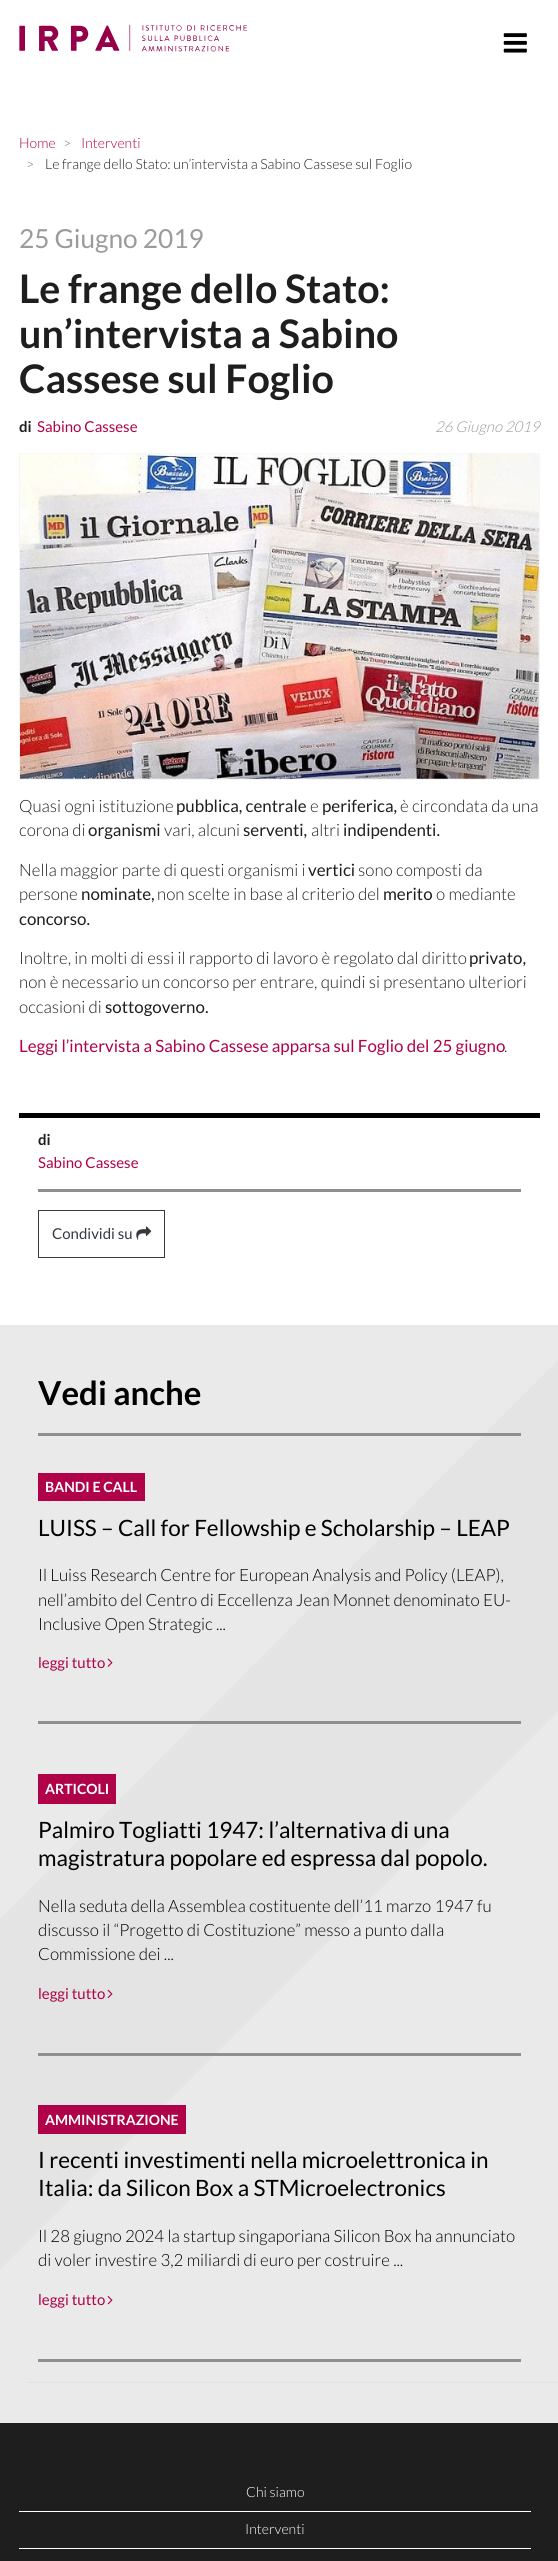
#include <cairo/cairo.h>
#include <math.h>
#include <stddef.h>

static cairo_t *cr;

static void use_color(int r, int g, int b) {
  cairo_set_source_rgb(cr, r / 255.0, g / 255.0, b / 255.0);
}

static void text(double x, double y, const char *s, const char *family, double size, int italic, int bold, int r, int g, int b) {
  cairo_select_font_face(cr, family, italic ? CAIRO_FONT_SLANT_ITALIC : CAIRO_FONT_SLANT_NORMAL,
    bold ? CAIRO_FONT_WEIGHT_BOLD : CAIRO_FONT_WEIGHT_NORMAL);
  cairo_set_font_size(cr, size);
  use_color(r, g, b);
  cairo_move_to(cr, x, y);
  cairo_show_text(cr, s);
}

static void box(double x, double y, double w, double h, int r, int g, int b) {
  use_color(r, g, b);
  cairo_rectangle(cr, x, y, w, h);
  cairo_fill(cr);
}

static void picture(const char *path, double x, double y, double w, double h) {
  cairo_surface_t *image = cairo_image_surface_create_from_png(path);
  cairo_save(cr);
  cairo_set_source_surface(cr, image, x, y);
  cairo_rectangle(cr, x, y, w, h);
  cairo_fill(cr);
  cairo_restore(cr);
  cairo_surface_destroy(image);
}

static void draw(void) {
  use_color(255, 255, 255);
  cairo_paint(cr);
  picture("img_01.png", 19, 24, 228, 28);
  picture("img_02.png", 503, 33, 24, 20);
  cairo_rectangle(cr, 19.5, 453.5, 520, 326);
  use_color(245, 245, 245);
  cairo_set_line_width(cr, 1);
  cairo_stroke(cr);
  picture("img_03.png", 20, 453, 519, 326);
  box(19, 1113, 521, 5, 0, 0, 0);
  box(38, 1189, 483, 3, 143, 143, 143);
  cairo_rectangle(cr, 38.5, 1210.5, 126, 47);
  use_color(52, 58, 64);
  cairo_stroke(cr);
  picture("img_04.png", 136, 1226, 16, 14);
  box(0, 1325, 558, 1098, 234, 234, 234);
  picture("img_05.png", 0, 1361, 558, 1022);
  box(38, 1433, 483, 3, 143, 143, 143);
  box(38, 1473, 107, 28, 176, 2, 73);
  picture("img_06.png", 107, 1658, 6, 9);
  box(38, 1721, 483, 3, 143, 143, 143);
  box(38, 1774, 78, 30, 176, 2, 73);
  picture("img_07.png", 107, 1989, 6, 10);
  box(38, 2053, 483, 3, 143, 143, 143);
  box(38, 2105, 148, 29, 176, 2, 73);
  picture("img_08.png", 107, 2296, 6, 9);
  box(38, 2359, 483, 3, 143, 143, 143);
  box(0, 2423, 558, 138, 30, 30, 30);
  box(19, 2511, 512, 1, 255, 255, 255);
  box(19, 2548, 512, 1, 255, 255, 255);
  text(19, 148, "Home", "Lato Light", 14.05, 0, 0, 176, 2, 73);
  text(63, 148, ">", "Lato Light", 14.05, 0, 0, 108, 117, 125);
  text(81, 148, "Interventi", "Lato Light", 14.05, 0, 0, 176, 2, 73);
  text(26, 169, ">", "Lato Light", 14.05, 0, 0, 108, 117, 125);
  text(45, 169, "Le frange dello Stato: un’intervista a Sabino Cassese sul Foglio", "Lato Light", 14.05, 0, 0, 30, 30, 30);
  text(19, 248, "25 Giugno 2019", "Lato", 26.25, 0, 0, 155, 155, 155);
  text(19, 303, "Le frange dello Stato:", "Lato", 39.4, 0, 1, 30, 30, 30);
  text(19, 348, "un’intervista a Sabino", "Lato", 39.4, 0, 1, 30, 30, 30);
  text(19, 393, "Cassese sul Foglio", "Lato", 39.4, 0, 1, 30, 30, 30);
  text(19, 432, "di", "Lato", 15, 0, 1, 30, 30, 30);
  text(37, 432, "Sabino Cassese", "Lato", 15, 0, 0, 176, 2, 73);
  text(435, 432, "26 Giugno 2019", "Lato Light", 15, 1, 0, 155, 155, 155);
  text(19, 812, "Quasi ogni istituzione", "Lato Light", 16.9, 0, 0, 30, 30, 30);
  text(176, 812, "pubblica, centrale", "Lato", 16.9, 0, 0, 30, 30, 30);
  text(310, 812, "e", "Lato Light", 16.9, 0, 0, 30, 30, 30);
  text(322, 812, "periferica,", "Lato", 16.9, 0, 0, 30, 30, 30);
  text(400, 812, "è circondata da una", "Lato Light", 16.9, 0, 0, 30, 30, 30);
  text(19, 836, "corona di", "Lato Light", 16.9, 0, 0, 30, 30, 30);
  text(88, 836, "organismi", "Lato", 16.9, 0, 0, 30, 30, 30);
  text(164, 836, "vari, alcuni", "Lato Light", 16.9, 0, 0, 30, 30, 30);
  text(243, 836, "serventi,", "Lato", 16.9, 0, 0, 30, 30, 30);
  text(311, 836, "altri", "Lato Light", 16.9, 0, 0, 30, 30, 30);
  text(343, 836, "indipendenti.", "Lato", 16.9, 0, 0, 30, 30, 30);
  text(19, 876, "Nella maggior parte di questi organismi i", "Lato Light", 16.9, 0, 0, 30, 30, 30);
  text(308, 876, "vertici", "Lato", 16.9, 0, 0, 30, 30, 30);
  text(358, 876, "sono composti da", "Lato Light", 16.9, 0, 0, 30, 30, 30);
  text(19, 900, "persone", "Lato Light", 16.9, 0, 0, 30, 30, 30);
  text(81, 900, "nominate,", "Lato", 16.9, 0, 0, 30, 30, 30);
  text(157, 900, "non scelte in base al criterio del", "Lato Light", 16.9, 0, 0, 30, 30, 30);
  text(383, 900, "merito", "Lato", 16.9, 0, 0, 30, 30, 30);
  text(436, 900, "o mediante", "Lato Light", 16.9, 0, 0, 30, 30, 30);
  text(19, 925, "concorso.", "Lato", 16.9, 0, 0, 30, 30, 30);
  text(19, 964, "Inoltre, in molti di essi il rapporto di lavoro è regolato dal diritto", "Lato Light", 16.9, 0, 0, 30, 30, 30);
  text(469, 964, "privato,", "Lato", 16.9, 0, 0, 30, 30, 30);
  text(19, 988, "non è necessario un concorso per entrare, quindi si presentano ulteriori", "Lato Light", 16.9, 0, 0, 30, 30, 30);
  text(19, 1013, "occasioni di", "Lato Light", 16.9, 0, 0, 30, 30, 30);
  text(105, 1013, "sottogoverno.", "Lato", 16.9, 0, 0, 30, 30, 30);
  text(19, 1052, "Leggi l’intervista a Sabino Cassese apparsa sul Foglio del 25 giugno", "Lato", 16.9, 0, 0, 176, 2, 73);
  text(504, 1052, ".", "Lato Light", 16.9, 0, 0, 30, 30, 30);
  text(38, 1145, "di", "Lato", 15, 0, 1, 30, 30, 30);
  text(38, 1168, "Sabino Cassese", "Lato", 15, 0, 0, 176, 2, 73);
  text(52, 1239, "Condividi su", "Lato", 15, 0, 0, 52, 58, 64);
  text(38, 1405, "Vedi anche", "Lato", 33, 0, 1, 0, 0, 0);
  text(45, 1492, "BANDI E CALL", "Lato", 14.05, 0, 1, 255, 255, 255);
  text(38, 1536, "LUISS – Call for Fellowship e Scholarship – LEAP", "Lato", 22.5, 0, 0, 0, 0, 0);
  text(38, 1581, "Il Luiss Research Centre for European Analysis and Policy (LEAP),", "Lato Light", 16.9, 0, 0, 0, 0, 0);
  text(38, 1606, "nell’ambito del Centro di Eccellenza Jean Monnet denominato EU-", "Lato Light", 16.9, 0, 0, 0, 0, 0);
  text(38, 1630, "Inclusive Open Strategic ...", "Lato Light", 16.9, 0, 0, 0, 0, 0);
  text(38, 1668, "leggi tutto", "Lato", 15, 0, 0, 176, 2, 73);
  text(45, 1794, "ARTICOLI", "Lato", 14.05, 0, 1, 255, 255, 255);
  text(38, 1838, "Palmiro Togliatti 1947: l’alternativa di una", "Lato", 22.5, 0, 0, 0, 0, 0);
  text(38, 1866, "magistratura popolare ed espressa dal popolo.", "Lato", 22.5, 0, 0, 0, 0, 0);
  text(38, 1912, "Nella seduta della Assemblea costituente dell’11 marzo 1947 fu", "Lato Light", 16.9, 0, 0, 0, 0, 0);
  text(38, 1936, "discusso il “Progetto di Costituzione” messo a punto dalla", "Lato Light", 16.9, 0, 0, 0, 0, 0);
  text(38, 1960, "Commissione dei ...", "Lato Light", 16.9, 0, 0, 0, 0, 0);
  text(38, 1999, "leggi tutto", "Lato", 15, 0, 0, 176, 2, 73);
  text(45, 2125, "AMMINISTRAZIONE", "Lato", 14.05, 0, 1, 255, 255, 255);
  text(38, 2168, "I recenti investimenti nella microelettronica in", "Lato", 22.5, 0, 0, 0, 0, 0);
  text(38, 2196, "Italia: da Silicon Box a STMicroelectronics", "Lato", 22.5, 0, 0, 0, 0, 0);
  text(38, 2242, "Il 28 giugno 2024 la startup singaporiana Silicon Box ha annunciato", "Lato Light", 16.9, 0, 0, 0, 0, 0);
  text(38, 2266, "di voler investire 3,2 miliardi di euro per costruire ...", "Lato Light", 16.9, 0, 0, 0, 0, 0);
  text(38, 2305, "leggi tutto", "Lato", 15, 0, 0, 176, 2, 73);
  text(246, 2497, "Chi siamo", "Lato Light", 14.05, 0, 0, 255, 255, 255);
  text(245, 2534, "Interventi", "Lato Light", 14.05, 0, 0, 255, 255, 255);
}

int main(void) {
  cairo_surface_t *surface = cairo_image_surface_create(CAIRO_FORMAT_RGB24, 558, 2561);
  cr = cairo_create(surface);
  cairo_font_options_t *options = cairo_font_options_create();
  cairo_font_options_set_hint_metrics(options, CAIRO_HINT_METRICS_OFF);
  cairo_font_options_set_hint_style(options, CAIRO_HINT_STYLE_NONE);
  cairo_set_font_options(cr, options);
  cairo_set_miter_limit(cr, 4);
  draw();
  cairo_surface_write_to_png(surface, "out.png");
  cairo_font_options_destroy(options);
  cairo_destroy(cr);
  cairo_surface_destroy(surface);
  return 0;
}
